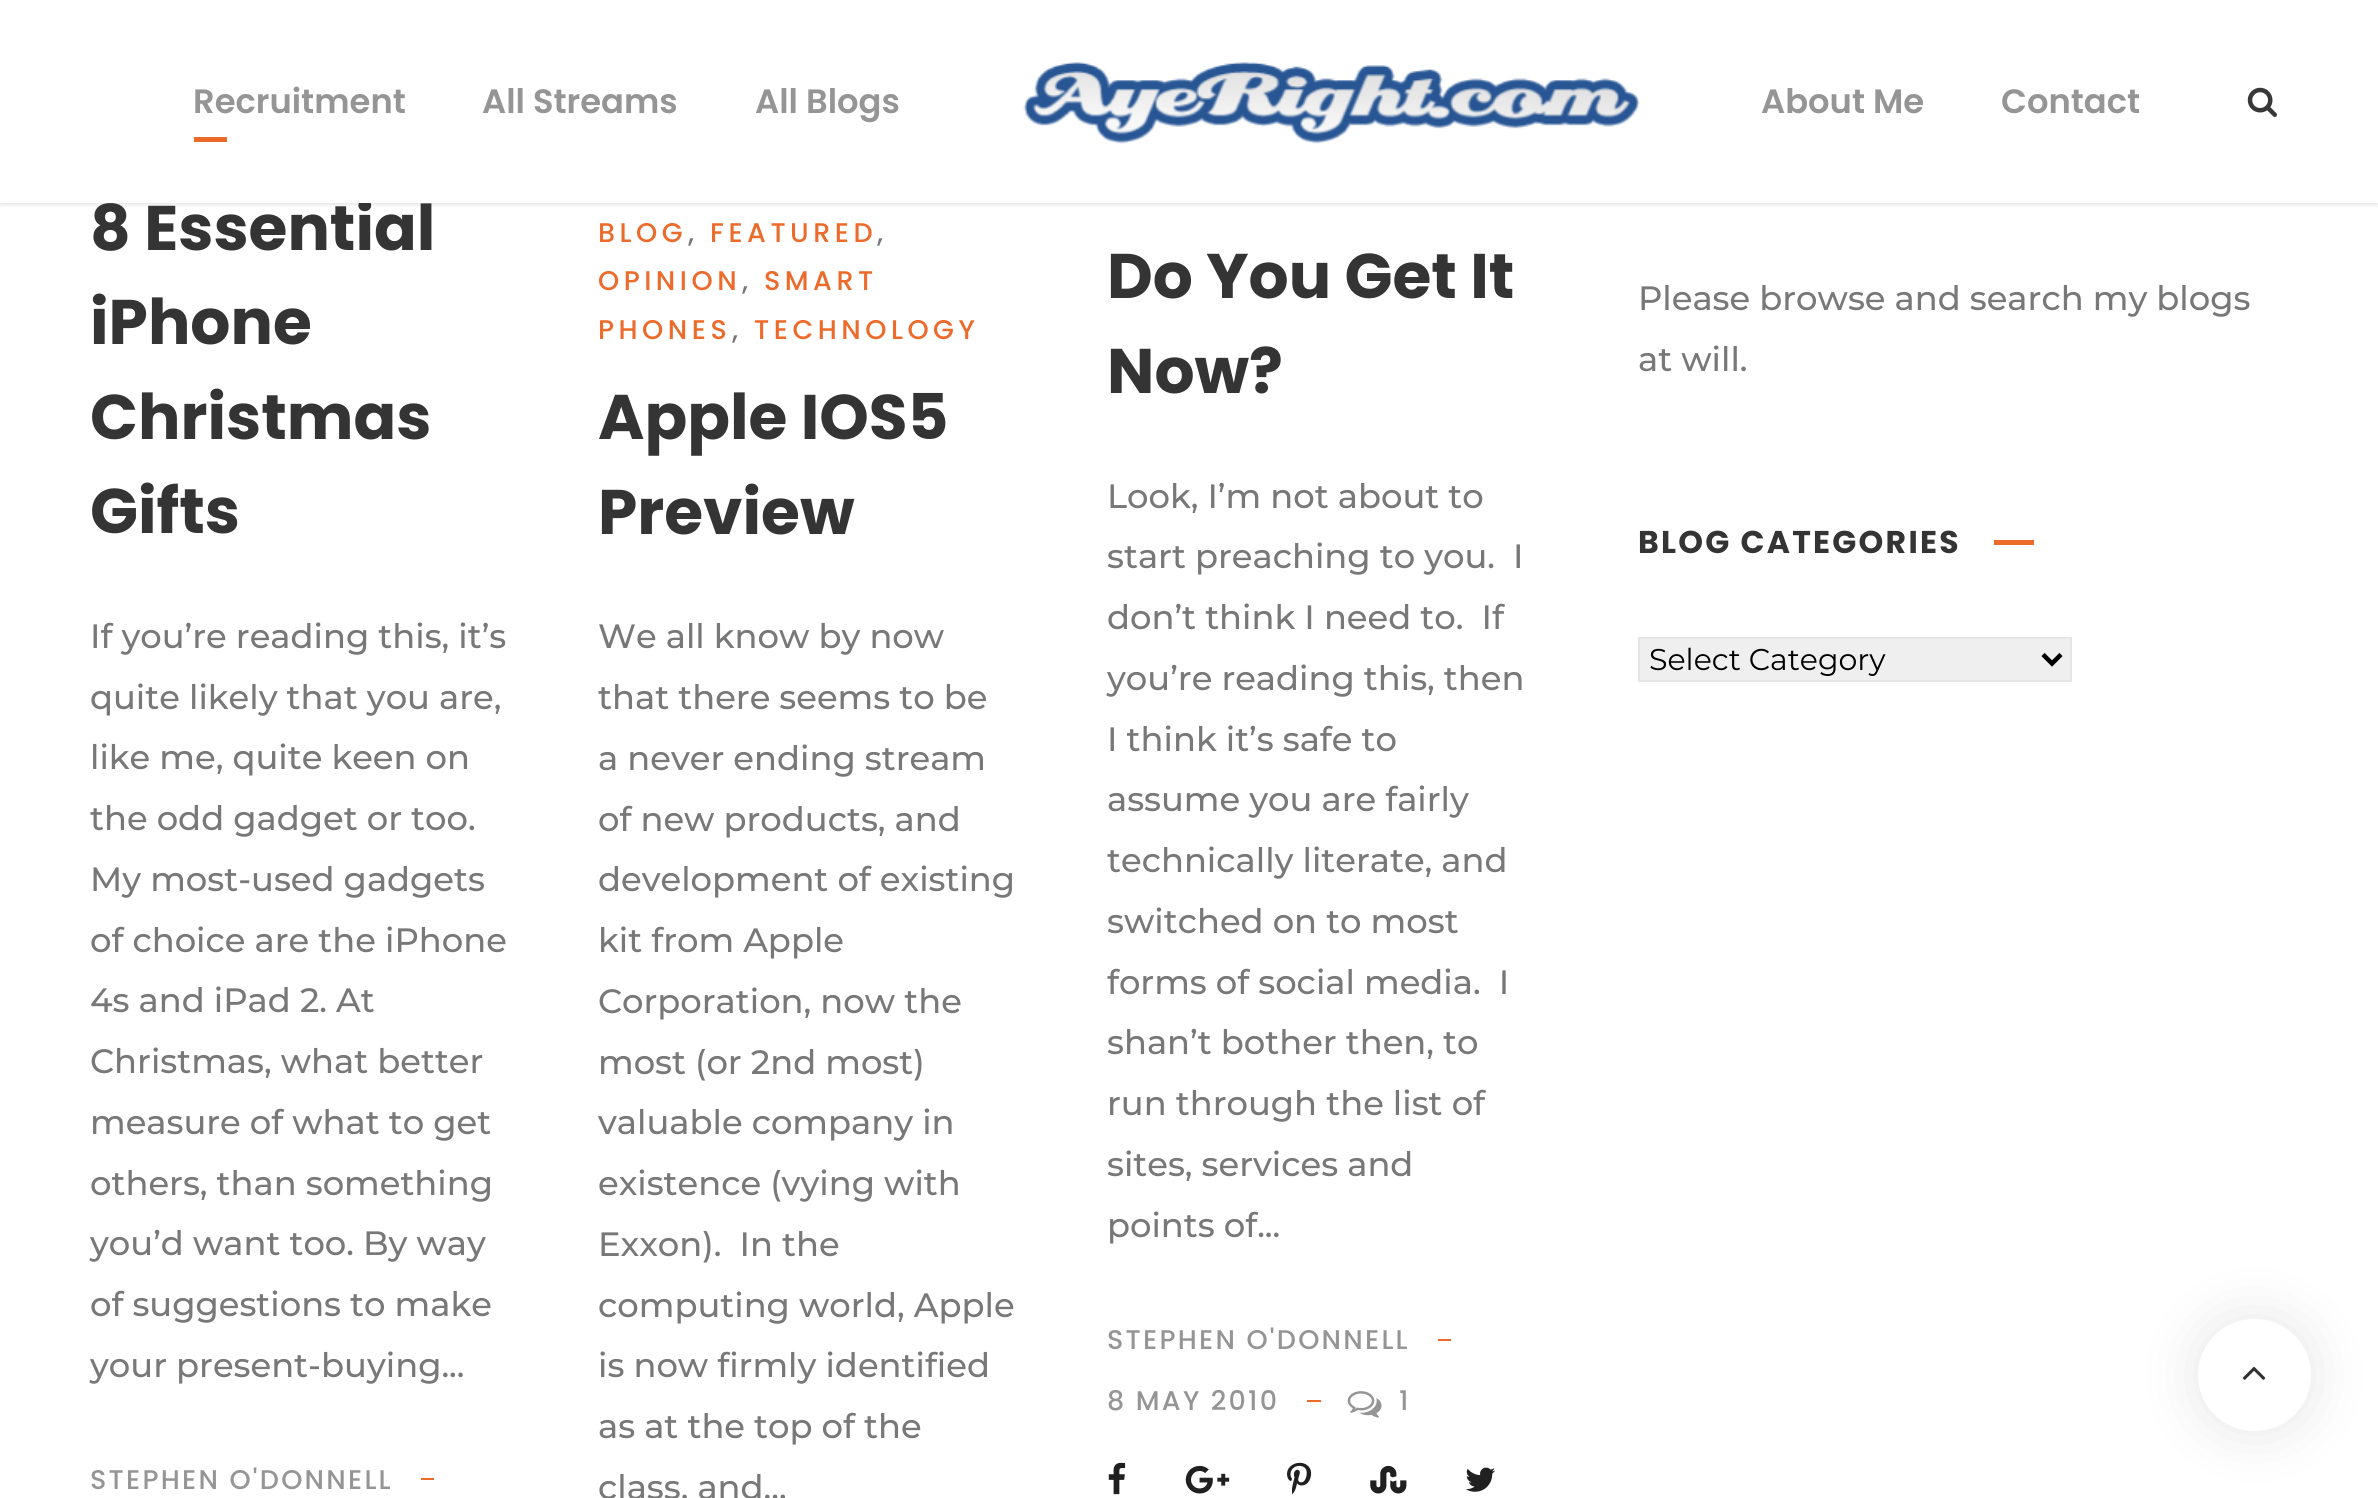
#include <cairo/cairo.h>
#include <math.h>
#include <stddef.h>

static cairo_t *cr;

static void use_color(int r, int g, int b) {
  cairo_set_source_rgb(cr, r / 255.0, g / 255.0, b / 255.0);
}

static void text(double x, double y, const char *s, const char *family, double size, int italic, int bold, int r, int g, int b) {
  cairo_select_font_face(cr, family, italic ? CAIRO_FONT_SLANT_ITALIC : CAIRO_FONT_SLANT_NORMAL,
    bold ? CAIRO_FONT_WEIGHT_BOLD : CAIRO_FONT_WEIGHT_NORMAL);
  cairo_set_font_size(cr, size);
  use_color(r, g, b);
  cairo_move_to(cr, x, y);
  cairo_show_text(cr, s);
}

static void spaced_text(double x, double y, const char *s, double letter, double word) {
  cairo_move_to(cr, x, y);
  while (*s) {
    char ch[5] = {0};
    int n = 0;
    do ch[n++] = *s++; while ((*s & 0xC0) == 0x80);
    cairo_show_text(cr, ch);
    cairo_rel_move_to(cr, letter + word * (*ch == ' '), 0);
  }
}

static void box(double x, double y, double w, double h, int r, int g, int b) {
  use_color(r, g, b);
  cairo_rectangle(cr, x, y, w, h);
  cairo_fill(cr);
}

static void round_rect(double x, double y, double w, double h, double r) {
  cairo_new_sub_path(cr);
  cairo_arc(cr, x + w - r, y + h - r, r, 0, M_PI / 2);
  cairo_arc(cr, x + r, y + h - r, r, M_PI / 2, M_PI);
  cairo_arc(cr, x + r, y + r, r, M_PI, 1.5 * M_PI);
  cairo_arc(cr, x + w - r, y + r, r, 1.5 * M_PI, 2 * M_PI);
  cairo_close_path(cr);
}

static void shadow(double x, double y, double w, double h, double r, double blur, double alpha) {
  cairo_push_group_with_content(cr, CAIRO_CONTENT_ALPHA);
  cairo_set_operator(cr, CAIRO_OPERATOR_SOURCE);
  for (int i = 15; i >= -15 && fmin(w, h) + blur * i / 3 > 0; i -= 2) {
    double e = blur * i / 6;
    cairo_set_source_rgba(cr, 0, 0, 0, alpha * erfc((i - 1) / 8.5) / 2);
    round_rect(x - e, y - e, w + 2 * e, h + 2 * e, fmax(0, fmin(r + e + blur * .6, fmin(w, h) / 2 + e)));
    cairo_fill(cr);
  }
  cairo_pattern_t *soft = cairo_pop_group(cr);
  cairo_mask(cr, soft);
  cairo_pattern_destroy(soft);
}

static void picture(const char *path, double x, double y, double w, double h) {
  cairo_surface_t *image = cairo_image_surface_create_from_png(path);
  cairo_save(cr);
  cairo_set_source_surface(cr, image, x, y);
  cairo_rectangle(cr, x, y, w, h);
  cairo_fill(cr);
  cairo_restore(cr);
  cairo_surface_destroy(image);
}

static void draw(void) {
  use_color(255, 255, 255);
  cairo_paint(cr);
  use_color(0, 0, 0);
  shadow(0, 2, 2378, 203, 0, 2, 0.1);
  box(421, 1478, 13, 2, 236, 106, 42);
  box(1438, 1339, 13, 2, 236, 106, 42);
  box(1307, 1400, 14, 2, 236, 106, 42);
  picture("img_03.png", 1347, 1391, 35, 27);
  picture("img_04.png", 1108, 1462, 18, 33);
  picture("img_05.png", 1185, 1465, 45, 29);
  picture("img_06.png", 1287, 1462, 25, 33);
  picture("img_07.png", 1370, 1465, 37, 29);
  picture("img_08.png", 1465, 1467, 31, 25);
  box(1994, 540, 40, 5, 236, 106, 42);
  use_color(239, 239, 239);
  cairo_rectangle(cr, 1639, 638, 432, 43);
  cairo_fill_preserve(cr);
  use_color(230, 230, 230);
  cairo_stroke(cr);
  cairo_new_path(cr);
  cairo_move_to(cr, 2043, 654.5);
  cairo_line_to(cr, 2052, 663.5);
  cairo_line_to(cr, 2061, 654.5);
  use_color(0, 0, 0);
  cairo_set_line_width(cr, 4.5);
  cairo_stroke(cr);
  use_color(0, 0, 0);
  shadow(2198, 1319, 113, 112, 56, 28, 0.1);
  use_color(255, 255, 255);
  round_rect(2198, 1319, 113, 112, 56);
  cairo_fill(cr);
  picture("img_09.png", 2242, 1366, 24, 14);
  text(90, 250, "8 Essential", "Poppins", 63, 0, 1, 52, 52, 52);
  box(0, 0, 2378, 203, 255, 255, 255);
  text(2001, 113, "Contact", "Poppins SemiBold", 33.75, 0, 0, 149, 149, 149);
  text(1761, 113, "About Me", "Poppins SemiBold", 33.75, 0, 0, 149, 149, 149);
  text(755, 113, "All Blogs", "Poppins SemiBold", 33.75, 0, 0, 149, 149, 149);
  text(482, 113, "All Streams", "Poppins SemiBold", 33.75, 0, 0, 149, 149, 149);
  text(193, 113, "Recruitment", "Poppins SemiBold", 33.75, 0, 0, 149, 149, 149);
  picture("img_02.png", 2247, 87, 30, 30);
  box(194, 137, 33, 5, 236, 106, 42);
  picture("img_01.png", 1023, 62, 617, 82);
  text(90, 344, "iPhone", "Poppins", 63, 0, 1, 52, 52, 52);
  text(90, 439, "Christmas", "Poppins", 63, 0, 1, 52, 52, 52);
  text(90, 533, "Gifts", "Poppins", 63, 0, 1, 52, 52, 52);
  text(90, 648, "If you’re reading this, it’s", "Montserrat Medium", 33.75, 0, 0, 120, 120, 120);
  text(90, 709, "quite likely that you are,", "Montserrat Medium", 33.75, 0, 0, 120, 120, 120);
  text(90, 769, "like me, quite keen on", "Montserrat Medium", 33.75, 0, 0, 120, 120, 120);
  text(90, 830, "the odd gadget or too.", "Montserrat Medium", 33.75, 0, 0, 120, 120, 120);
  text(90, 891, "My most-used gadgets", "Montserrat Medium", 33.75, 0, 0, 120, 120, 120);
  text(90, 952, "of choice are the iPhone", "Montserrat Medium", 33.75, 0, 0, 120, 120, 120);
  text(90, 1012, "4s and iPad 2. At", "Montserrat Medium", 33.75, 0, 0, 120, 120, 120);
  text(90, 1073, "Christmas, what better", "Montserrat Medium", 33.75, 0, 0, 120, 120, 120);
  text(90, 1134, "measure of what to get", "Montserrat Medium", 33.75, 0, 0, 120, 120, 120);
  text(90, 1195, "others, than something", "Montserrat Medium", 33.75, 0, 0, 120, 120, 120);
  text(90, 1255, "you’d want too. By way", "Montserrat Medium", 33.75, 0, 0, 120, 120, 120);
  text(90, 1316, "of suggestions to make", "Montserrat Medium", 33.75, 0, 0, 120, 120, 120);
  text(90, 1377, "your present-buying...", "Montserrat Medium", 33.75, 0, 0, 120, 120, 120);
  cairo_select_font_face(cr, "Poppins Medium", CAIRO_FONT_SLANT_NORMAL, CAIRO_FONT_WEIGHT_NORMAL);
  cairo_set_font_size(cr, 27);
  use_color(149, 149, 149);
  spaced_text(90, 1489, "STEPHEN O'DONNELL", 2.25, 0);
  use_color(236, 106, 42);
  spaced_text(598, 242, "BLOG", 4.5, 0);
  use_color(120, 120, 120);
  spaced_text(688, 242, ",", 4.5, 0);
  use_color(236, 106, 42);
  spaced_text(710, 242, "FEATURED", 4.5, 0);
  use_color(120, 120, 120);
  spaced_text(877, 242, ",", 4.5, 0);
  use_color(236, 106, 42);
  spaced_text(598, 290, "OPINION", 4.5, 0);
  use_color(120, 120, 120);
  spaced_text(742, 290, ",", 4.5, 0);
  use_color(236, 106, 42);
  spaced_text(764, 290, "SMART", 4.5, 0);
  spaced_text(598, 339, "PHONES", 4.5, 0);
  use_color(120, 120, 120);
  spaced_text(732, 339, ",", 4.5, 0);
  use_color(236, 106, 42);
  spaced_text(754, 339, "TECHNOLOGY", 4.5, 0);
  text(598, 439, "Apple IOS5", "Poppins", 63, 0, 1, 52, 52, 52);
  text(598, 534, "Preview", "Poppins", 63, 0, 1, 52, 52, 52);
  text(598, 648, "We all know by now", "Montserrat Medium", 33.75, 0, 0, 120, 120, 120);
  text(598, 709, "that there seems to be", "Montserrat Medium", 33.75, 0, 0, 120, 120, 120);
  text(598, 770, "a never ending stream", "Montserrat Medium", 33.75, 0, 0, 120, 120, 120);
  text(598, 831, "of new products, and", "Montserrat Medium", 33.75, 0, 0, 120, 120, 120);
  text(598, 891, "development of existing", "Montserrat Medium", 33.75, 0, 0, 120, 120, 120);
  text(598, 952, "kit from Apple", "Montserrat Medium", 33.75, 0, 0, 120, 120, 120);
  text(598, 1013, "Corporation, now the", "Montserrat Medium", 33.75, 0, 0, 120, 120, 120);
  text(598, 1074, "most (or 2nd most)", "Montserrat Medium", 33.75, 0, 0, 120, 120, 120);
  text(598, 1134, "valuable company in", "Montserrat Medium", 33.75, 0, 0, 120, 120, 120);
  text(598, 1195, "existence (vying with", "Montserrat Medium", 33.75, 0, 0, 120, 120, 120);
  text(598, 1256, "Exxon).  In the", "Montserrat Medium", 33.75, 0, 0, 120, 120, 120);
  text(598, 1317, "computing world, Apple", "Montserrat Medium", 33.75, 0, 0, 120, 120, 120);
  text(598, 1377, "is now firmly identified", "Montserrat Medium", 33.75, 0, 0, 120, 120, 120);
  text(598, 1438, "as at the top of the", "Montserrat Medium", 33.75, 0, 0, 120, 120, 120);
  text(598, 1499, "class, and...", "Montserrat Medium", 33.75, 0, 0, 120, 120, 120);
  text(1107, 298, "Do You Get It", "Poppins", 63, 0, 1, 52, 52, 52);
  text(1107, 393, "Now?", "Poppins", 63, 0, 1, 52, 52, 52);
  text(1107, 508, "Look, I’m not about to", "Montserrat Medium", 33.75, 0, 0, 120, 120, 120);
  text(1107, 568, "start preaching to you.  I", "Montserrat Medium", 33.75, 0, 0, 120, 120, 120);
  text(1107, 629, "don’t think I need to.  If", "Montserrat Medium", 33.75, 0, 0, 120, 120, 120);
  text(1107, 690, "you’re reading this, then", "Montserrat Medium", 33.75, 0, 0, 120, 120, 120);
  text(1107, 751, "I think it’s safe to", "Montserrat Medium", 33.75, 0, 0, 120, 120, 120);
  text(1107, 811, "assume you are fairly", "Montserrat Medium", 33.75, 0, 0, 120, 120, 120);
  text(1107, 872, "technically literate, and", "Montserrat Medium", 33.75, 0, 0, 120, 120, 120);
  text(1107, 933, "switched on to most", "Montserrat Medium", 33.75, 0, 0, 120, 120, 120);
  text(1107, 994, "forms of social media.  I", "Montserrat Medium", 33.75, 0, 0, 120, 120, 120);
  text(1107, 1054, "shan’t bother then, to", "Montserrat Medium", 33.75, 0, 0, 120, 120, 120);
  text(1107, 1115, "run through the list of", "Montserrat Medium", 33.75, 0, 0, 120, 120, 120);
  text(1107, 1176, "sites, services and", "Montserrat Medium", 33.75, 0, 0, 120, 120, 120);
  text(1107, 1237, "points of...", "Montserrat Medium", 33.75, 0, 0, 120, 120, 120);
  cairo_select_font_face(cr, "Poppins Medium", CAIRO_FONT_SLANT_NORMAL, CAIRO_FONT_WEIGHT_NORMAL);
  cairo_set_font_size(cr, 27);
  use_color(149, 149, 149);
  spaced_text(1107, 1349, "STEPHEN O'DONNELL", 2.25, 0);
  spaced_text(1107, 1410, "8 MAY 2010", 2.25, 0);
  spaced_text(1399, 1410, "1", 2.25, 0);
  text(1638, 310, "Please browse and search my blogs", "Montserrat Medium", 33.75, 0, 0, 120, 120, 120);
  text(1638, 371, "at will.", "Montserrat Medium", 33.75, 0, 0, 120, 120, 120);
  cairo_select_font_face(cr, "Poppins", CAIRO_FONT_SLANT_NORMAL, CAIRO_FONT_WEIGHT_BOLD);
  cairo_set_font_size(cr, 31.5);
  use_color(52, 52, 52);
  spaced_text(1638, 553, "BLOG CATEGORIES", 2.25, 0);
  text(1649, 670, "Select Category", "Montserrat Thin", 30, 0, 0, 0, 0, 0);
}

int main(void) {
  cairo_surface_t *surface = cairo_image_surface_create(CAIRO_FORMAT_RGB24, 2378, 1498);
  cr = cairo_create(surface);
  cairo_font_options_t *options = cairo_font_options_create();
  cairo_font_options_set_hint_metrics(options, CAIRO_HINT_METRICS_OFF);
  cairo_font_options_set_hint_style(options, CAIRO_HINT_STYLE_NONE);
  cairo_set_font_options(cr, options);
  cairo_set_miter_limit(cr, 4);
  draw();
  cairo_surface_write_to_png(surface, "out.png");
  cairo_font_options_destroy(options);
  cairo_destroy(cr);
  cairo_surface_destroy(surface);
  return 0;
}
